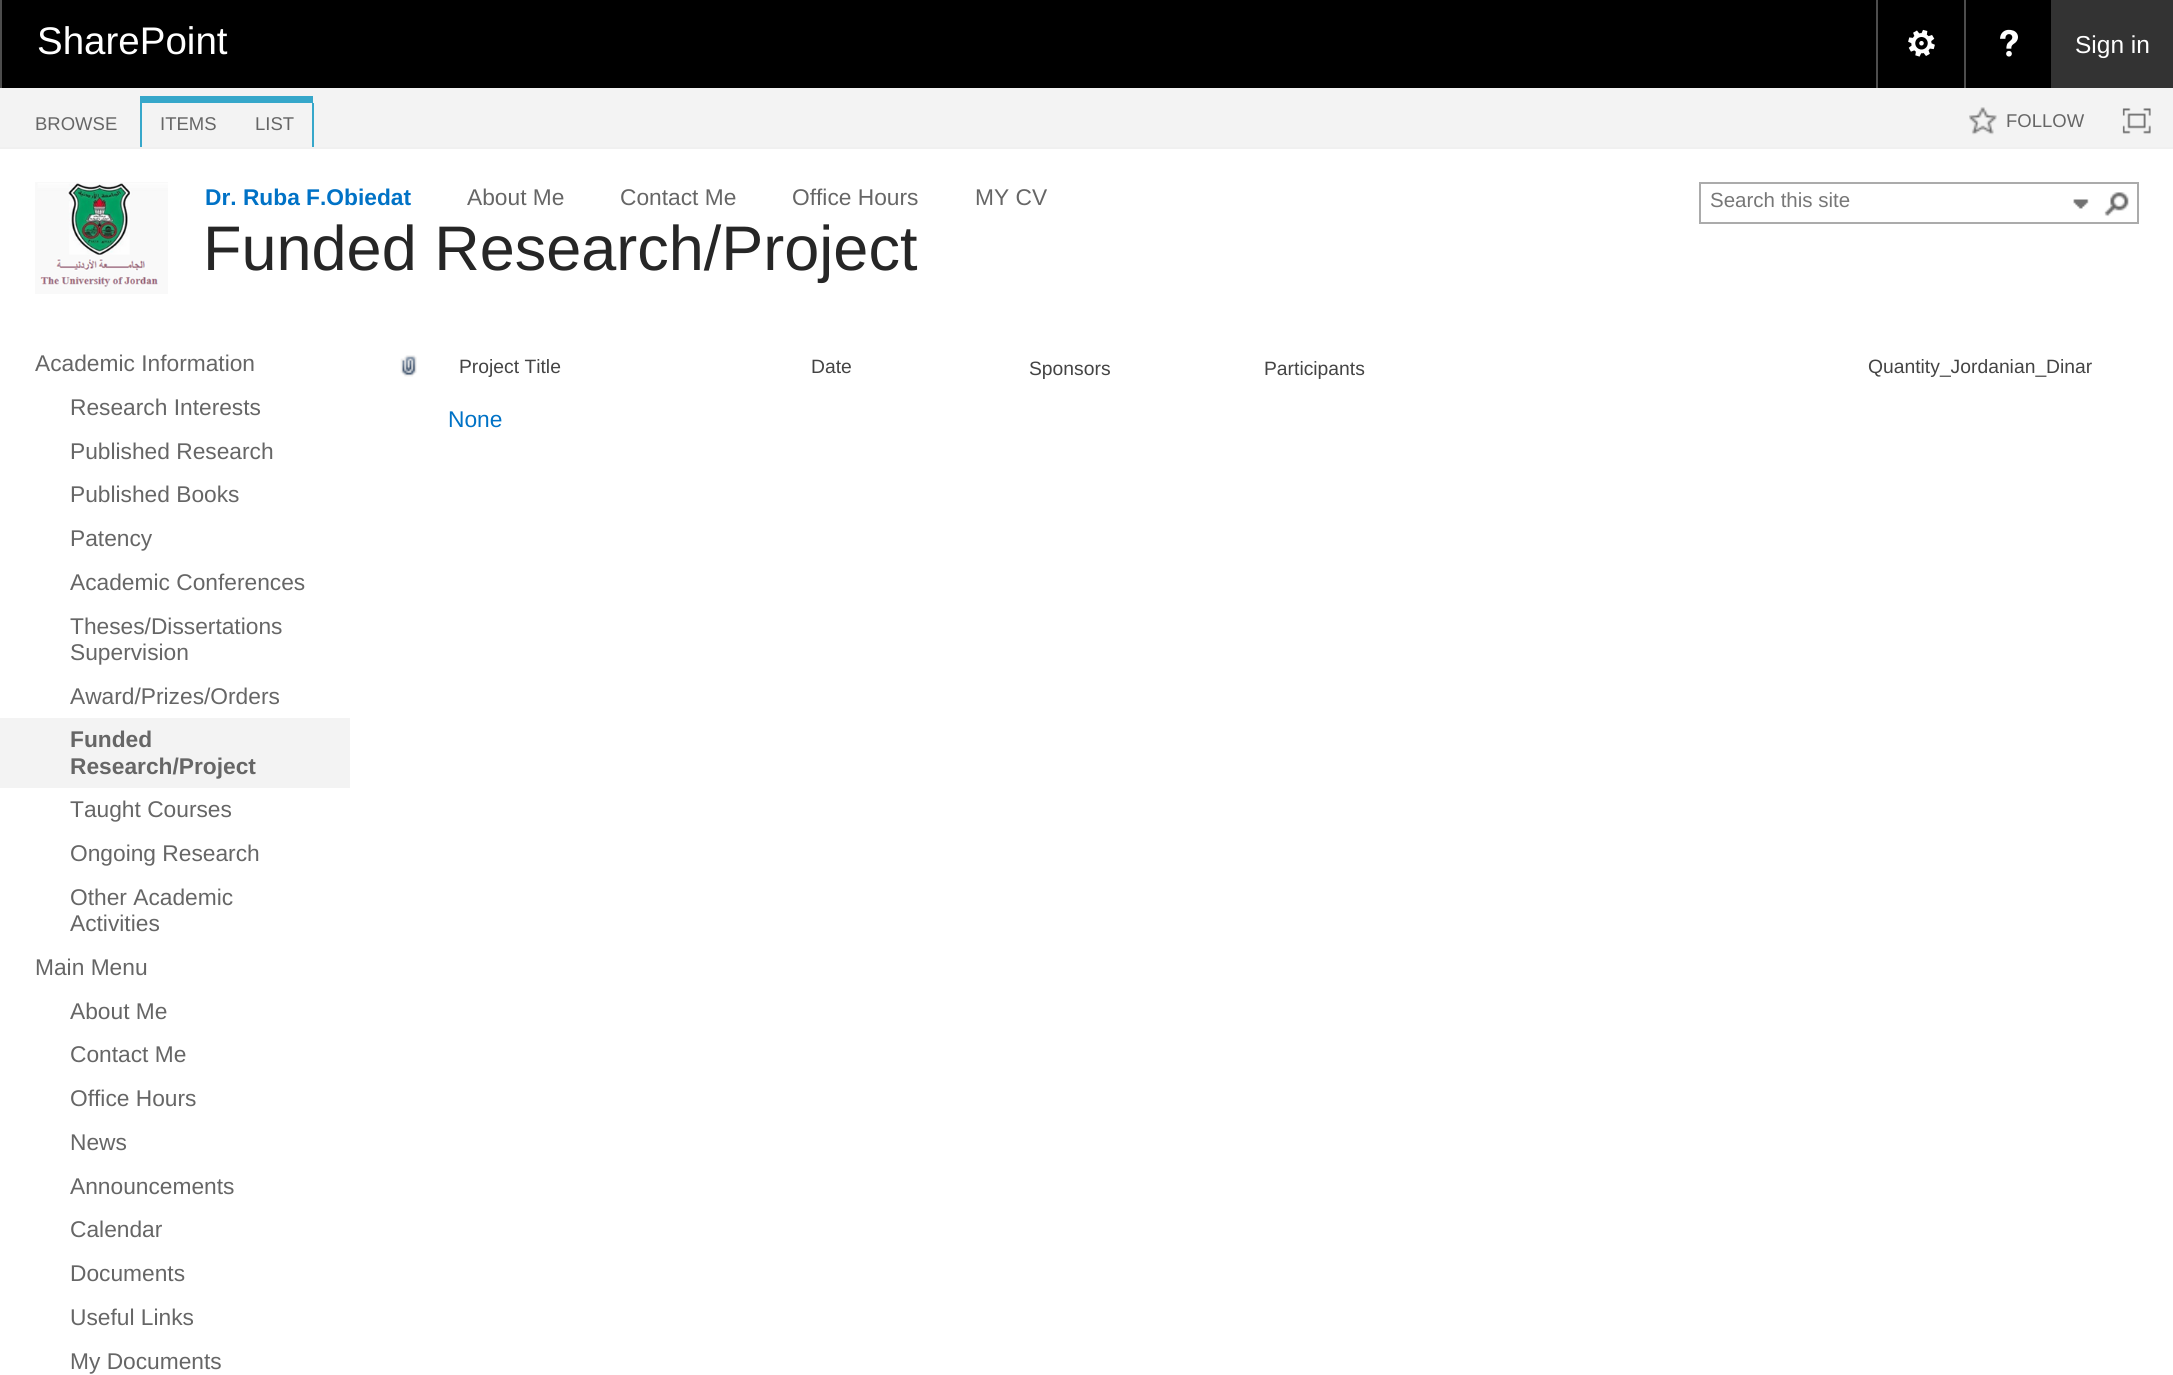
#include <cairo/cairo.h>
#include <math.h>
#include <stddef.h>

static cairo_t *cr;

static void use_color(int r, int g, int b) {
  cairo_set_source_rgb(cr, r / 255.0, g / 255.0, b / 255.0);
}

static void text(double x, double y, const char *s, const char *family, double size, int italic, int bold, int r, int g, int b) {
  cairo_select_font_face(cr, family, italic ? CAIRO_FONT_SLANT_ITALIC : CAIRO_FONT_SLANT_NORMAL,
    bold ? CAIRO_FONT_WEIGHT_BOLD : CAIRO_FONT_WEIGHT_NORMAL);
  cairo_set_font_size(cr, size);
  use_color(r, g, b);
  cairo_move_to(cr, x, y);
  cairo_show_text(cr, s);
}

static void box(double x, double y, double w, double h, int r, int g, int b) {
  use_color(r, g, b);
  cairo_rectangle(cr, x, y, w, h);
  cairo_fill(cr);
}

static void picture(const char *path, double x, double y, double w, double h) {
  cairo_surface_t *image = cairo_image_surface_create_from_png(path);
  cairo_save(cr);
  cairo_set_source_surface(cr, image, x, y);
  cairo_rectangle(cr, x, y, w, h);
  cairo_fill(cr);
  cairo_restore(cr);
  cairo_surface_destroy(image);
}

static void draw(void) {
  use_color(255, 255, 255);
  cairo_paint(cr);
  box(2, 0, 2049, 88, 0, 0, 0);
  box(0, 0, 2, 88, 77, 77, 77);
  box(1876, 0, 2, 88, 77, 77, 77);
  picture("img_01.png", 1908, 29, 27, 28);
  box(1964, 0, 2, 88, 77, 77, 77);
  picture("img_02.png", 2000, 29, 18, 28);
  box(2051, 0, 122, 88, 51, 51, 51);
  box(0, 88, 2173, 59, 243, 243, 243);
  box(0, 147, 2173, 2, 240, 240, 240);
  box(140, 96, 173, 7, 54, 167, 202);
  box(140, 103, 2, 44, 54, 167, 202);
  box(312, 103, 2, 44, 54, 167, 202);
  picture("img_03.png", 1969, 107, 28, 28);
  picture("img_04.png", 2122, 108, 29, 26);
  picture("img_05.png", 35, 182, 133, 112);
  cairo_rectangle(cr, 1700, 183, 438, 40);
  use_color(171, 171, 171);
  cairo_stroke(cr);
  picture("img_06.png", 2073, 199, 16, 10);
  picture("img_07.png", 2104, 192, 25, 25);
  box(0, 718, 350, 70, 243, 243, 243);
  picture("img_08.png", 400, 355, 17, 22);
  text(37, 54, "SharePoint", "Liberation Sans", 38.5, 0, 0, 255, 255, 255);
  text(2075, 53, "Sign in", "Liberation Sans", 24.5, 0, 0, 255, 255, 255);
  text(35, 130, "BROWSE", "Liberation Sans", 18.5, 0, 0, 102, 102, 102);
  text(160, 130, "ITEMS", "Liberation Sans", 18.5, 0, 0, 102, 102, 102);
  text(255, 130, "LIST", "Liberation Sans", 18.5, 0, 0, 102, 102, 102);
  text(2006, 127, "FOLLOW", "Liberation Sans", 18.5, 0, 0, 102, 102, 102);
  text(205, 205, "Dr. Ruba F.Obiedat", "Liberation Sans", 22.75, 0, 1, 0, 114, 198);
  text(467, 205, "About Me", "Liberation Sans", 22.75, 0, 0, 102, 102, 102);
  text(620, 205, "Contact Me", "Liberation Sans", 22.75, 0, 0, 102, 102, 102);
  text(792, 205, "Office Hours", "Liberation Sans", 22.75, 0, 0, 102, 102, 102);
  text(975, 205, "MY CV", "Liberation Sans", 22.75, 0, 0, 102, 102, 102);
  text(203, 270, "Funded Research/Project", "Liberation Sans", 63, 0, 0, 38, 38, 38);
  text(1710, 207, "Search this site", "Liberation Sans", 20.5, 0, 0, 119, 119, 119);
  text(35, 371, "Academic Information", "Liberation Sans", 22.75, 0, 0, 102, 102, 102);
  text(70, 415, "Research Interests", "Liberation Sans", 22.75, 0, 0, 102, 102, 102);
  text(70, 459, "Published Research", "Liberation Sans", 22.75, 0, 0, 102, 102, 102);
  text(70, 502, "Published Books", "Liberation Sans", 22.75, 0, 0, 102, 102, 102);
  text(70, 546, "Patency", "Liberation Sans", 22.75, 0, 0, 102, 102, 102);
  text(70, 590, "Academic Conferences", "Liberation Sans", 22.75, 0, 0, 102, 102, 102);
  text(70, 634, "Theses/Dissertations", "Liberation Sans", 22.75, 0, 0, 102, 102, 102);
  text(70, 660, "Supervision", "Liberation Sans", 22.75, 0, 0, 102, 102, 102);
  text(70, 704, "Award/Prizes/Orders", "Liberation Sans", 22.75, 0, 0, 102, 102, 102);
  text(70, 747, "Funded", "Liberation Sans", 22.75, 0, 1, 102, 102, 102);
  text(70, 774, "Research/Project", "Liberation Sans", 22.75, 0, 1, 102, 102, 102);
  text(70, 817, "Taught Courses", "Liberation Sans", 22.75, 0, 0, 102, 102, 102);
  text(70, 861, "Ongoing Research", "Liberation Sans", 22.75, 0, 0, 102, 102, 102);
  text(70, 905, "Other Academic", "Liberation Sans", 22.75, 0, 0, 102, 102, 102);
  text(70, 931, "Activities", "Liberation Sans", 22.75, 0, 0, 102, 102, 102);
  text(35, 975, "Main Menu", "Liberation Sans", 22.75, 0, 0, 102, 102, 102);
  text(70, 1019, "About Me", "Liberation Sans", 22.75, 0, 0, 102, 102, 102);
  text(70, 1062, "Contact Me", "Liberation Sans", 22.75, 0, 0, 102, 102, 102);
  text(70, 1106, "Office Hours", "Liberation Sans", 22.75, 0, 0, 102, 102, 102);
  text(70, 1150, "News", "Liberation Sans", 22.75, 0, 0, 102, 102, 102);
  text(70, 1194, "Announcements", "Liberation Sans", 22.75, 0, 0, 102, 102, 102);
  text(70, 1237, "Calendar", "Liberation Sans", 22.75, 0, 0, 102, 102, 102);
  text(70, 1281, "Documents", "Liberation Sans", 22.75, 0, 0, 102, 102, 102);
  text(70, 1325, "Useful Links", "Liberation Sans", 22.75, 0, 0, 102, 102, 102);
  text(70, 1369, "My Documents", "Liberation Sans", 22.75, 0, 0, 102, 102, 102);
  text(459, 373, "Project Title", "Liberation Sans", 19.3, 0, 0, 68, 68, 68);
  text(811, 373, "Date", "Liberation Sans", 19.3, 0, 0, 68, 68, 68);
  text(1029, 375, "Sponsors", "Liberation Sans", 19.3, 0, 0, 68, 68, 68);
  text(1264, 375, "Participants", "Liberation Sans", 19.3, 0, 0, 68, 68, 68);
  text(1868, 373, "Quantity_Jordanian_Dinar", "Liberation Sans", 19.3, 0, 0, 68, 68, 68);
  text(448, 427, "None", "Liberation Sans", 22.75, 0, 0, 0, 114, 198);
}

int main(void) {
  cairo_surface_t *surface = cairo_image_surface_create(CAIRO_FORMAT_RGB24, 2173, 1375);
  cr = cairo_create(surface);
  cairo_font_options_t *options = cairo_font_options_create();
  cairo_font_options_set_hint_metrics(options, CAIRO_HINT_METRICS_OFF);
  cairo_font_options_set_hint_style(options, CAIRO_HINT_STYLE_NONE);
  cairo_set_font_options(cr, options);
  cairo_set_miter_limit(cr, 4);
  draw();
  cairo_surface_write_to_png(surface, "out.png");
  cairo_font_options_destroy(options);
  cairo_destroy(cr);
  cairo_surface_destroy(surface);
  return 0;
}
